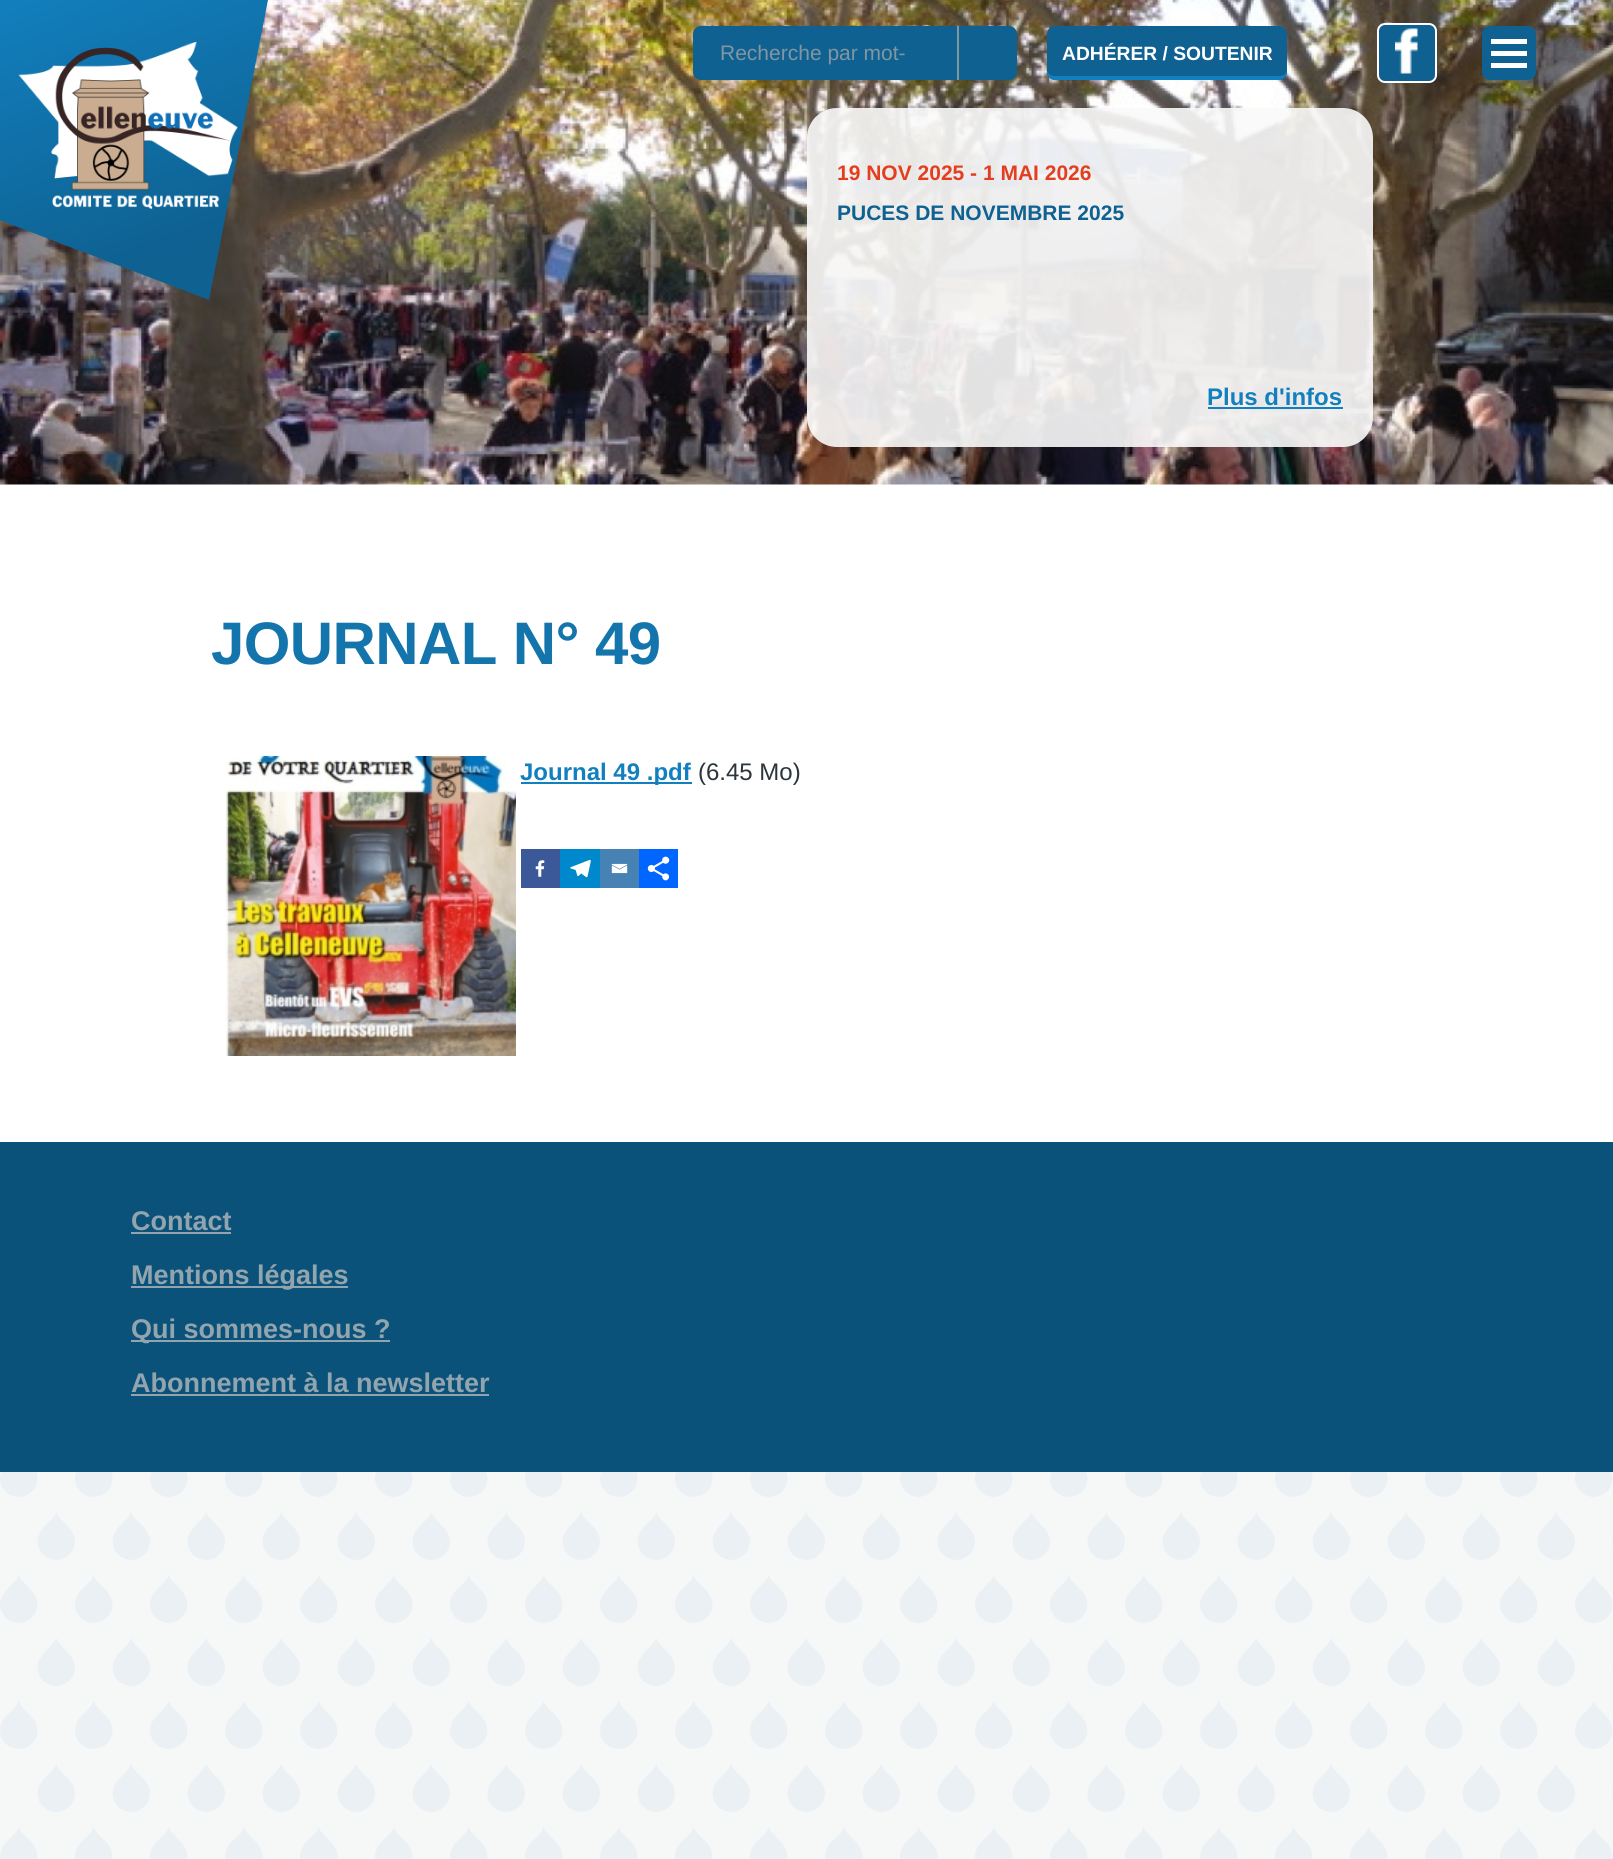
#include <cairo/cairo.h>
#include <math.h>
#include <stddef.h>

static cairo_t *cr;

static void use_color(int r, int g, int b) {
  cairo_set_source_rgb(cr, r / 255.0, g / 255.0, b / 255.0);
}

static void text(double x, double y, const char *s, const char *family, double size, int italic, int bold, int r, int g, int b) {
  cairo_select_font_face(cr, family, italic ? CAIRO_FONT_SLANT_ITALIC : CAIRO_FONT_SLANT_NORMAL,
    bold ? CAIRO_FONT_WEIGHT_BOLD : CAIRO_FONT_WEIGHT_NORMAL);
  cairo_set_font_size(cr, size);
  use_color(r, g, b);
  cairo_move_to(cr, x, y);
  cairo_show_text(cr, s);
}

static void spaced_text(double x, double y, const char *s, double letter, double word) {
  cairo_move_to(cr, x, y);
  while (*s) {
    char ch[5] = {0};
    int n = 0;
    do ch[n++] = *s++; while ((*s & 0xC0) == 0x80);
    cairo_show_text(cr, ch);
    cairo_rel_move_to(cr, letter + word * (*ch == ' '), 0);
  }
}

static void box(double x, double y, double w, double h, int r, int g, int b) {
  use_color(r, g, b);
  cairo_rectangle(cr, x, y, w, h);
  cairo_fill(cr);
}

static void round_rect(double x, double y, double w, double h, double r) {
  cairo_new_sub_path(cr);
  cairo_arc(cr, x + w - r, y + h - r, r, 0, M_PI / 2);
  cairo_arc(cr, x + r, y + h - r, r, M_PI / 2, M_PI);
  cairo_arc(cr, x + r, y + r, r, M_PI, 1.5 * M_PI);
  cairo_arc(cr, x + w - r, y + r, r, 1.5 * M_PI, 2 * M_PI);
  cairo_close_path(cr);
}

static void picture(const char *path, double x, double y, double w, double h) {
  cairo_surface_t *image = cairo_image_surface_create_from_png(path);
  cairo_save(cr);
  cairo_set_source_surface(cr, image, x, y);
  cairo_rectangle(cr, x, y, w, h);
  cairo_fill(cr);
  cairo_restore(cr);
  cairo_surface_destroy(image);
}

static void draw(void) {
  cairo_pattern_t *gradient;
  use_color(246, 248, 248);
  cairo_paint(cr);
  picture("img_01.png", 0, 1472, 1613, 387);
  box(0, 484, 1613, 658, 255, 255, 255);
  picture("img_04.png", 0, 0, 1613, 485);
  gradient = cairo_pattern_create_linear(55, -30, 186, 330);
  cairo_pattern_add_color_stop_rgba(gradient, 0, 0.071, 0.502, 0.749, 1);
  cairo_pattern_add_color_stop_rgba(gradient, 0.79, 0.055, 0.38, 0.569, 1);
  cairo_set_source(cr, gradient);
  cairo_pattern_destroy(gradient);
  cairo_new_path(cr);
  cairo_move_to(cr, -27, 0);
  cairo_line_to(cr, -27, 210);
  cairo_line_to(cr, 209, 300);
  cairo_line_to(cr, 268, 0);
  cairo_close_path(cr);
  cairo_fill(cr);
  picture("img_02.png", 18, 41, 220, 168);
  use_color(14, 97, 145);
  cairo_new_path(cr);
  cairo_move_to(cr, 701, 26);
  cairo_line_to(cr, 957, 26);
  cairo_line_to(cr, 957, 80);
  cairo_line_to(cr, 701, 80);
  cairo_curve_to(cr, 696.5, 80, 693, 76.5, 693, 72);
  cairo_line_to(cr, 693, 34);
  cairo_curve_to(cr, 693, 29.5, 696.5, 26, 701, 26);
  cairo_close_path(cr);
  cairo_fill(cr);
  cairo_new_path(cr);
  cairo_move_to(cr, 959, 26);
  cairo_line_to(cr, 1009, 26);
  cairo_curve_to(cr, 1013.5, 26, 1017, 29.5, 1017, 34);
  cairo_line_to(cr, 1017, 72);
  cairo_curve_to(cr, 1017, 76.5, 1013.5, 80, 1009, 80);
  cairo_line_to(cr, 959, 80);
  cairo_close_path(cr);
  cairo_fill(cr);
  box(957, 26, 2, 54, 129, 150, 162);
  use_color(14, 97, 145);
  round_rect(1047, 26, 240, 54, 8);
  cairo_fill(cr);
  use_color(18, 128, 191);
  cairo_new_path(cr);
  cairo_move_to(cr, 1047, 69);
  cairo_line_to(cr, 1047, 72);
  cairo_curve_to(cr, 1047, 76, 1051, 80, 1055, 80);
  cairo_line_to(cr, 1279, 80);
  cairo_curve_to(cr, 1283, 80, 1287, 76, 1287, 72);
  cairo_line_to(cr, 1287, 69);
  cairo_curve_to(cr, 1287, 73, 1284, 76, 1280, 76);
  cairo_line_to(cr, 1054, 76);
  cairo_curve_to(cr, 1050, 76, 1047, 73, 1047, 69);
  cairo_close_path(cr);
  cairo_fill(cr);
  use_color(14, 97, 145);
  round_rect(1378, 24, 58, 58, 7);
  cairo_fill_preserve(cr);
  use_color(255, 255, 255);
  cairo_stroke(cr);
  picture("img_03.png", 1395, 28, 23, 46);
  use_color(14, 97, 145);
  round_rect(1482, 26, 54, 54, 8);
  cairo_fill(cr);
  box(1491, 51, 36, 5, 255, 255, 255);
  box(1491, 39, 36, 5, 255, 255, 255);
  box(1491, 63, 36, 5, 255, 255, 255);
  cairo_set_source_rgba(cr, 0.98, 0.98, 0.98, 0.9);
  round_rect(807, 108, 566, 339, 30);
  cairo_fill(cr);
  box(1208, 407, 135, 2, 18, 128, 191);
  picture("img_05.png", 225, 756, 291, 300);
  box(521, 782, 171, 2, 18, 128, 191);
  box(521, 849, 39, 39, 59, 89, 152);
  picture("img_06.png", 535, 860, 10, 17);
  box(560, 849, 40, 39, 0, 136, 204);
  picture("img_07.png", 570, 859, 21, 19);
  box(600, 849, 39, 39, 70, 130, 180);
  picture("img_08.png", 611, 863, 17, 11);
  box(639, 849, 39, 39, 1, 102, 255);
  picture("img_09.png", 647, 856, 23, 25);
  box(0, 1142, 1613, 330, 11, 82, 122);
  box(131, 1232, 100, 2, 146, 165, 175);
  box(131, 1286, 217, 2, 146, 165, 175);
  box(131, 1340, 259, 2, 146, 165, 175);
  box(131, 1394, 358, 2, 146, 165, 175);
  text(720, 60, "Recherche par mot-", "Liberation Sans", 21, 0, 0, 129, 150, 162);
  text(1062, 60, "ADHÉRER / SOUTENIR", "Liberation Sans", 19.25, 0, 1, 255, 255, 255);
  text(837, 180, "19 NOV 2025 - 1 MAI 2026", "Liberation Sans", 21, 0, 1, 227, 63, 30);
  text(837, 220, "PUCES DE NOVEMBRE 2025", "Liberation Sans", 21, 0, 1, 14, 97, 145);
  text(1207, 405, "Plus d'infos", "Liberation Sans", 24, 0, 1, 18, 128, 191);
  cairo_set_font_size(cr, 60);
  use_color(20, 117, 173);
  spaced_text(211, 664, "JOURNAL N° 49", -0.6, 0);
  text(520, 780, "Journal 49 .pdf", "Liberation Sans", 24, 0, 1, 18, 128, 191);
  text(698, 780, "(6.45 Mo)", "Liberation Sans", 24, 0, 0, 43, 53, 59);
  text(131, 1230, "Contact", "Liberation Sans", 27, 0, 1, 146, 165, 175);
  text(131, 1284, "Mentions légales", "Liberation Sans", 27, 0, 1, 146, 165, 175);
  text(131, 1338, "Qui sommes-nous ?", "Liberation Sans", 27, 0, 1, 146, 165, 175);
  text(131, 1392, "Abonnement à la newsletter", "Liberation Sans", 27, 0, 1, 146, 165, 175);
}

int main(void) {
  cairo_surface_t *surface = cairo_image_surface_create(CAIRO_FORMAT_RGB24, 1613, 1859);
  cr = cairo_create(surface);
  cairo_font_options_t *options = cairo_font_options_create();
  cairo_font_options_set_hint_metrics(options, CAIRO_HINT_METRICS_OFF);
  cairo_font_options_set_hint_style(options, CAIRO_HINT_STYLE_NONE);
  cairo_set_font_options(cr, options);
  cairo_set_miter_limit(cr, 4);
  draw();
  cairo_surface_write_to_png(surface, "out.png");
  cairo_font_options_destroy(options);
  cairo_destroy(cr);
  cairo_surface_destroy(surface);
  return 0;
}
